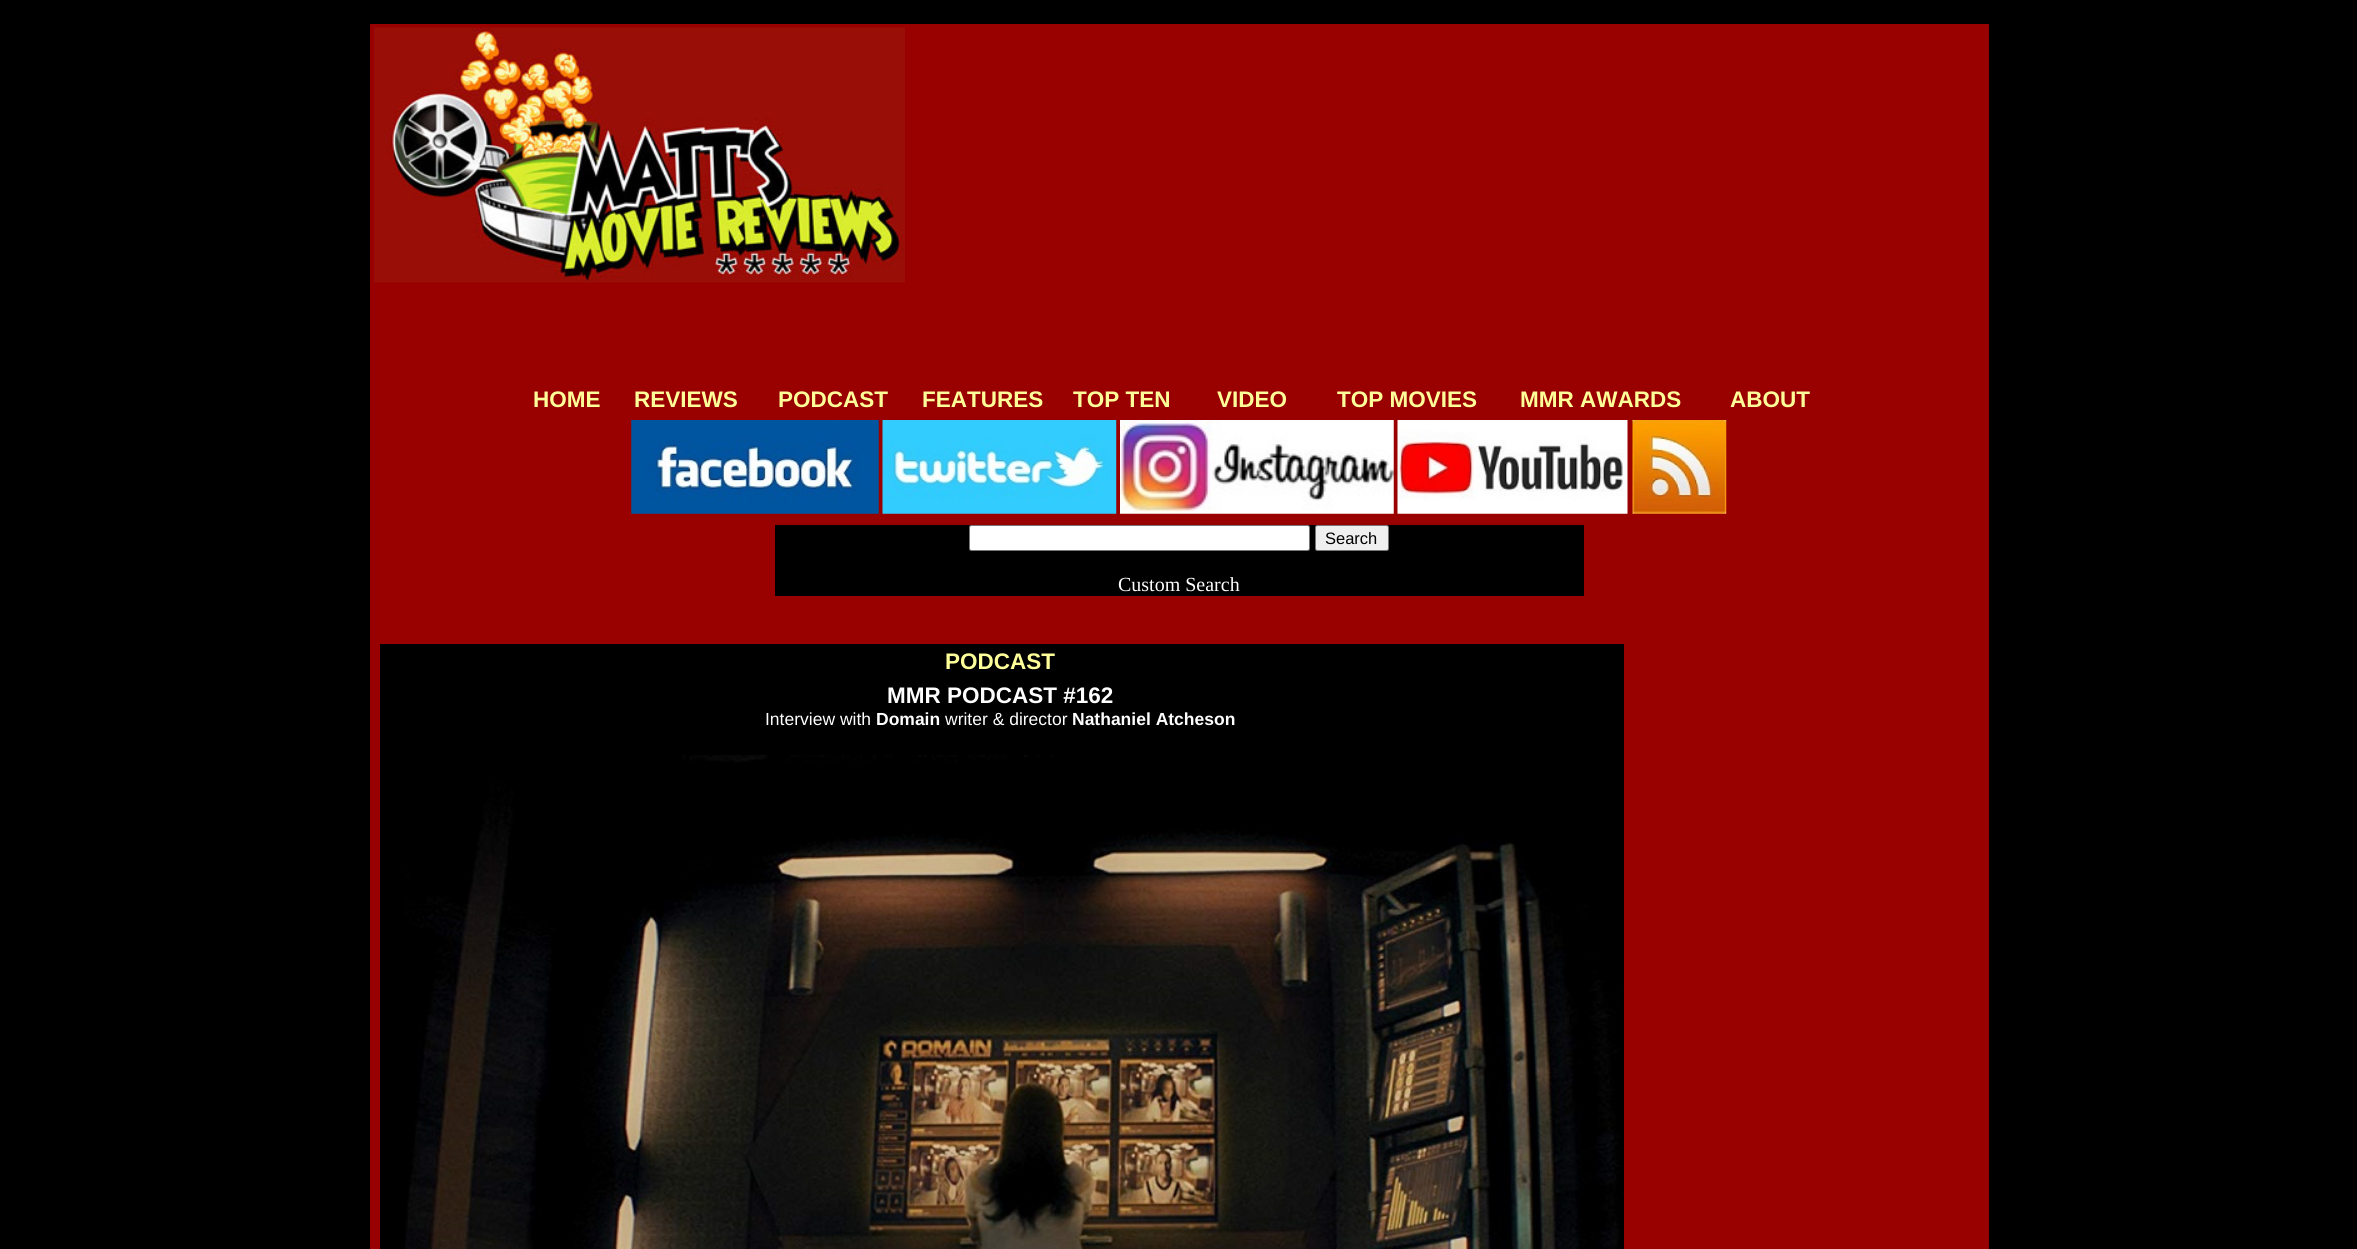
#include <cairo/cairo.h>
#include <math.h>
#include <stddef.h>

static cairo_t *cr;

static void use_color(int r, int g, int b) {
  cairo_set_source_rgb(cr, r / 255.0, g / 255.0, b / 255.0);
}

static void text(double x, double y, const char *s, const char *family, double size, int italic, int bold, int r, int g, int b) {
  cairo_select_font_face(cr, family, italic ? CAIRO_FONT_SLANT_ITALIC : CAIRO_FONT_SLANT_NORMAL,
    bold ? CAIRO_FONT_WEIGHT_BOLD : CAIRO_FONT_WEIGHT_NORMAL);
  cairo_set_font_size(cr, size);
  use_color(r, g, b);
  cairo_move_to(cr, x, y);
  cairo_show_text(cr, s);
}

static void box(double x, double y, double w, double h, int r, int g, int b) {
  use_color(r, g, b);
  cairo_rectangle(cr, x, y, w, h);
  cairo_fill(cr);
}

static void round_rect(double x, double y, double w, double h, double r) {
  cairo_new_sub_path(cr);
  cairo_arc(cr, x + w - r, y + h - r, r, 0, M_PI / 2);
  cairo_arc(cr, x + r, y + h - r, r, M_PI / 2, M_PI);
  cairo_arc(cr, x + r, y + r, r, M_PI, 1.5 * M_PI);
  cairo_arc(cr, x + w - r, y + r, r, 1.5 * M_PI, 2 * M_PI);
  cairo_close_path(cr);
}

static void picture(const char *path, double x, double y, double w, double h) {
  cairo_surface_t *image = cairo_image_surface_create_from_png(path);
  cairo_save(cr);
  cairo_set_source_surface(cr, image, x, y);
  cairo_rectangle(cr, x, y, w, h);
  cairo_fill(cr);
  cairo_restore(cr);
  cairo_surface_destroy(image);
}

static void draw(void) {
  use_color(0, 0, 0);
  cairo_paint(cr);
  box(370, 24, 1619, 1225, 153, 0, 0);
  picture("img_01.png", 374, 27, 531, 256);
  picture("img_02.png", 631, 420, 248, 94);
  picture("img_03.png", 882, 420, 235, 94);
  picture("img_04.png", 1120, 420, 274, 94);
  picture("img_05.png", 1397, 420, 231, 94);
  picture("img_06.png", 1632, 420, 95, 94);
  box(775, 525, 809, 71, 0, 0, 0);
  use_color(255, 255, 255);
  round_rect(969.5, 525.5, 340, 25, 2);
  cairo_fill_preserve(cr);
  use_color(118, 118, 118);
  cairo_set_line_width(cr, 1);
  cairo_stroke(cr);
  use_color(239, 239, 239);
  round_rect(1315.5, 525.5, 73, 25, 2);
  cairo_fill_preserve(cr);
  use_color(118, 118, 118);
  cairo_stroke(cr);
  box(380, 644, 1244, 605, 0, 0, 0);
  picture("img_07.png", 404, 755, 1216, 494);
  text(533, 407, "HOME", "Liberation Sans", 22.5, 0, 1, 255, 255, 153);
  text(634, 407, "REVIEWS", "Liberation Sans", 22.5, 0, 1, 255, 255, 153);
  text(778, 407, "PODCAST", "Liberation Sans", 22.5, 0, 1, 255, 255, 153);
  text(922, 407, "FEATURES", "Liberation Sans", 22.5, 0, 1, 255, 255, 153);
  text(1073, 407, "TOP TEN", "Liberation Sans", 22.5, 0, 1, 255, 255, 153);
  text(1217, 407, "VIDEO", "Liberation Sans", 22.5, 0, 1, 255, 255, 153);
  text(1337, 407, "TOP MOVIES", "Liberation Sans", 22.5, 0, 1, 255, 255, 153);
  text(1520, 407, "MMR AWARDS", "Liberation Sans", 22.5, 0, 1, 255, 255, 153);
  text(1730, 407, "ABOUT", "Liberation Sans", 22.5, 0, 1, 255, 255, 153);
  text(1325, 544, "Search", "Liberation Sans", 16.5, 0, 0, 0, 0, 0);
  text(1118, 591, "Custom Search", "Liberation Serif", 20, 0, 0, 255, 255, 255);
  text(945, 669, "PODCAST", "Liberation Sans", 22.5, 0, 1, 255, 255, 153);
  text(887, 703, "MMR PODCAST #162", "Liberation Sans", 22.5, 0, 1, 255, 255, 255);
  text(765, 725, "Interview with", "Liberation Sans", 17.5, 0, 0, 255, 255, 255);
  text(876, 725, "Domain", "Liberation Sans", 17.5, 0, 1, 255, 255, 255);
  text(945, 725, "writer & director", "Liberation Sans", 17.5, 0, 0, 255, 255, 255);
  text(1072, 725, "Nathaniel Atcheson", "Liberation Sans", 17.5, 0, 1, 255, 255, 255);
}

int main(void) {
  cairo_surface_t *surface = cairo_image_surface_create(CAIRO_FORMAT_RGB24, 2357, 1249);
  cr = cairo_create(surface);
  cairo_font_options_t *options = cairo_font_options_create();
  cairo_font_options_set_hint_metrics(options, CAIRO_HINT_METRICS_OFF);
  cairo_font_options_set_hint_style(options, CAIRO_HINT_STYLE_NONE);
  cairo_set_font_options(cr, options);
  cairo_set_miter_limit(cr, 4);
  draw();
  cairo_surface_write_to_png(surface, "out.png");
  cairo_font_options_destroy(options);
  cairo_destroy(cr);
  cairo_surface_destroy(surface);
  return 0;
}
